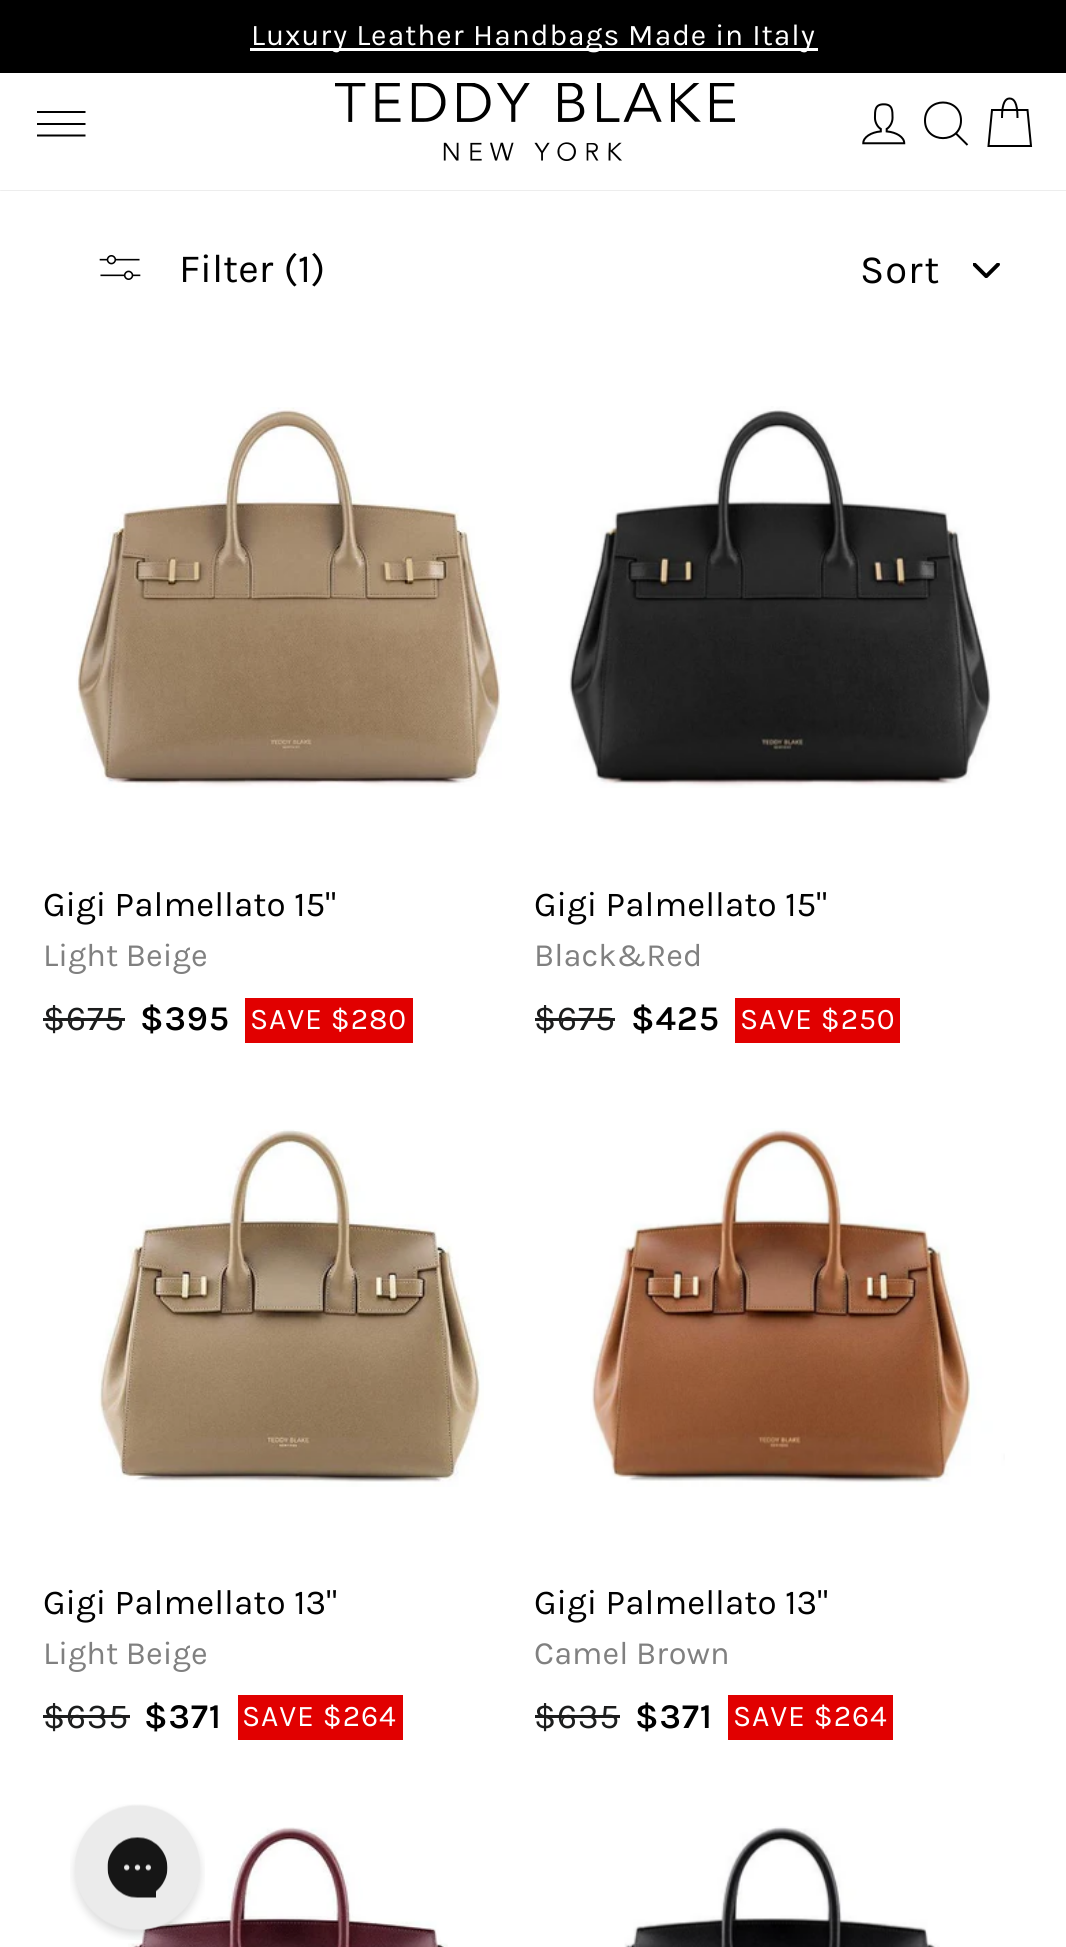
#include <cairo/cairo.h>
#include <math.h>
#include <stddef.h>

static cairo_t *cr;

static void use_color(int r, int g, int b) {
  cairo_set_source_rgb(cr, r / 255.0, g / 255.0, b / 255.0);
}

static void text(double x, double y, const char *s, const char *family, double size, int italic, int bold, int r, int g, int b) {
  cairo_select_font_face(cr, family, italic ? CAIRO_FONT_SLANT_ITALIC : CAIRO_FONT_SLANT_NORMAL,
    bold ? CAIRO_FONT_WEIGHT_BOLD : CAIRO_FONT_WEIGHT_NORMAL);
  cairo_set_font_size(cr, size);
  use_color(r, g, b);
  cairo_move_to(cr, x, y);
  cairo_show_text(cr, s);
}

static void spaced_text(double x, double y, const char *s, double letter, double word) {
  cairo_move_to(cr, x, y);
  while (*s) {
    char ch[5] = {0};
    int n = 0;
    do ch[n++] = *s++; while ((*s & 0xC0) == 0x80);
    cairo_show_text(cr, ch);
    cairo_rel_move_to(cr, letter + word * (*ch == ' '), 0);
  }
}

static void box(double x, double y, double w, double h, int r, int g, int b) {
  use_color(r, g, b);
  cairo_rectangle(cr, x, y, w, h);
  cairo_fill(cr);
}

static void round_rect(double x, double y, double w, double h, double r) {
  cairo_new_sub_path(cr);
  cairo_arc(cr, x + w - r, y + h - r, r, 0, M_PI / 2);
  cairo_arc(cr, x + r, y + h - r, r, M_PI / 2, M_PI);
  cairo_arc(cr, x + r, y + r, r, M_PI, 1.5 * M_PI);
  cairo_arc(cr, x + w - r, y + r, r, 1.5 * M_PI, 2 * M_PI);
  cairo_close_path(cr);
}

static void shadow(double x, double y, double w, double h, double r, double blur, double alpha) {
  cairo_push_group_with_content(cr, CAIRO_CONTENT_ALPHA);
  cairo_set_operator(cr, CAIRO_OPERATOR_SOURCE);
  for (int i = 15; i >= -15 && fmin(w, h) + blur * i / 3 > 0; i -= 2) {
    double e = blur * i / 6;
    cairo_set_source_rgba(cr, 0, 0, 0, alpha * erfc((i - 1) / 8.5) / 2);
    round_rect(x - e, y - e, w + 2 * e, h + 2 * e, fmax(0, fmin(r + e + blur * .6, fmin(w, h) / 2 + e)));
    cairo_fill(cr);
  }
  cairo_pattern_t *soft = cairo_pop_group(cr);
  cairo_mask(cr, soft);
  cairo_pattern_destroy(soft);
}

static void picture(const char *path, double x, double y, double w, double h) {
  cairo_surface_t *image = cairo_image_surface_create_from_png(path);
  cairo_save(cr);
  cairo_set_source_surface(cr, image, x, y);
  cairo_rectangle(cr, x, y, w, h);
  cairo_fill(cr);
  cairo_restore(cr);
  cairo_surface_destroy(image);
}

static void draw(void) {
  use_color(255, 255, 255);
  cairo_paint(cr);
  cairo_save(cr);
  cairo_rectangle(cr, 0, 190, 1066, 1);
  cairo_clip(cr);
  use_color(0, 0, 0);
  shadow(0, 0, 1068, 190, 0, 1, 0.2);
  cairo_restore(cr);
  box(0, 0, 1066, 73, 0, 0, 0);
  box(250, 48, 568, 3, 255, 255, 255);
  cairo_new_path(cr);
  cairo_move_to(cr, 37, 112);
  cairo_line_to(cr, 85.5, 112);
  cairo_move_to(cr, 37, 124);
  cairo_line_to(cr, 85.5, 124);
  cairo_move_to(cr, 37, 135.5);
  cairo_line_to(cr, 85.5, 135.5);
  use_color(0, 0, 0);
  cairo_stroke(cr);
  picture("img_01.png", 335, 83, 400, 78);
  picture("img_02.png", 862, 103, 44, 42);
  cairo_new_path(cr);
  cairo_move_to(cr, 961, 120.5);
  cairo_curve_to(cr, 961, 144, 925, 144, 925, 120.5);
  cairo_curve_to(cr, 925, 96.5, 961, 96.5, 961, 120.5);
  cairo_close_path(cr);
  cairo_move_to(cr, 967.5, 145);
  cairo_line_to(cr, 956, 133.5);
  cairo_stroke(cr);
  cairo_new_path(cr);
  cairo_move_to(cr, 1002, 118);
  cairo_curve_to(cr, 1002, 102.5, 1005.5, 98.5, 1009.5, 98.5);
  cairo_curve_to(cr, 1014, 98.5, 1017.5, 102.5, 1017.5, 118);
  cairo_move_to(cr, 992, 110);
  cairo_line_to(cr, 1027.5, 110);
  cairo_line_to(cr, 1031, 146);
  cairo_line_to(cr, 988.5, 146);
  cairo_close_path(cr);
  cairo_stroke(cr);
  picture("img_03.png", 99, 255, 42, 25);
  picture("img_04.png", 973, 263, 27, 15);
  picture("img_05.png", 76, 407, 426, 381);
  box(43, 1018, 82, 3, 28, 29, 29);
  box(245, 998, 168, 45, 225, 0, 0);
  picture("img_06.png", 568, 406, 424, 382);
  box(535, 1018, 80, 3, 28, 29, 29);
  box(735, 998, 165, 45, 225, 0, 0);
  picture("img_07.png", 98, 1129, 386, 358);
  box(43, 1715, 87, 3, 28, 29, 29);
  box(238, 1695, 165, 45, 225, 0, 0);
  picture("img_08.png", 590, 1128, 415, 359);
  box(535, 1715, 85, 3, 28, 29, 29);
  box(728, 1695, 165, 45, 225, 0, 0);
  picture("img_09.png", 128, 1827, 320, 120);
  picture("img_10.png", 624, 1826, 316, 121);
  picture("img_11.png", 70, 1804, 135, 136);
  cairo_select_font_face(cr, "Karla", CAIRO_FONT_SLANT_NORMAL, CAIRO_FONT_WEIGHT_NORMAL);
  cairo_set_font_size(cr, 30);
  use_color(255, 255, 255);
  spaced_text(251, 45, "Luxury Leather Handbags Made in Italy", 0.9, 0);
  text(179, 282, "Filter (1)", "Karla", 40, 0, 0, 0, 0, 0);
  spaced_text(860, 283, "Sort", 1, 0);
  text(43, 916, "Gigi Palmellato 15\"", "Karla", 35, 0, 0, 0, 0, 0);
  text(43, 966, "Light Beige", "Karla", 32.5, 0, 0, 128, 128, 128);
  cairo_set_font_size(cr, 35);
  use_color(28, 29, 29);
  spaced_text(43, 1030, "$675", 0.9, 0);
  cairo_select_font_face(cr, "Karla SemiBold", CAIRO_FONT_SLANT_NORMAL, CAIRO_FONT_WEIGHT_NORMAL);
  use_color(0, 0, 0);
  spaced_text(140, 1030, "$395", 0.9, 0);
  cairo_select_font_face(cr, "Karla", CAIRO_FONT_SLANT_NORMAL, CAIRO_FONT_WEIGHT_NORMAL);
  cairo_set_font_size(cr, 30);
  use_color(255, 255, 255);
  spaced_text(250, 1029, "SAVE $280", 0.9, 0);
  text(534, 916, "Gigi Palmellato 15\"", "Karla", 35, 0, 0, 0, 0, 0);
  text(534, 966, "Black&Red", "Karla", 32.5, 0, 0, 128, 128, 128);
  cairo_set_font_size(cr, 35);
  use_color(28, 29, 29);
  spaced_text(534, 1030, "$675", 0.9, 0);
  cairo_select_font_face(cr, "Karla SemiBold", CAIRO_FONT_SLANT_NORMAL, CAIRO_FONT_WEIGHT_NORMAL);
  use_color(0, 0, 0);
  spaced_text(631, 1030, "$425", 0.9, 0);
  cairo_select_font_face(cr, "Karla", CAIRO_FONT_SLANT_NORMAL, CAIRO_FONT_WEIGHT_NORMAL);
  cairo_set_font_size(cr, 30);
  use_color(255, 255, 255);
  spaced_text(740, 1029, "SAVE $250", 0.9, 0);
  text(43, 1614, "Gigi Palmellato 13\"", "Karla", 35, 0, 0, 0, 0, 0);
  text(43, 1664, "Light Beige", "Karla", 32.5, 0, 0, 128, 128, 128);
  cairo_set_font_size(cr, 35);
  use_color(28, 29, 29);
  spaced_text(43, 1728, "$635", 0.9, 0);
  cairo_select_font_face(cr, "Karla SemiBold", CAIRO_FONT_SLANT_NORMAL, CAIRO_FONT_WEIGHT_NORMAL);
  use_color(0, 0, 0);
  spaced_text(144, 1728, "$371", 0.9, 0);
  cairo_select_font_face(cr, "Karla", CAIRO_FONT_SLANT_NORMAL, CAIRO_FONT_WEIGHT_NORMAL);
  cairo_set_font_size(cr, 30);
  use_color(255, 255, 255);
  spaced_text(242, 1726, "SAVE $264", 0.9, 0);
  text(534, 1614, "Gigi Palmellato 13\"", "Karla", 35, 0, 0, 0, 0, 0);
  text(534, 1664, "Camel Brown", "Karla", 32.5, 0, 0, 128, 128, 128);
  cairo_set_font_size(cr, 35);
  use_color(28, 29, 29);
  spaced_text(534, 1728, "$635", 0.9, 0);
  cairo_select_font_face(cr, "Karla SemiBold", CAIRO_FONT_SLANT_NORMAL, CAIRO_FONT_WEIGHT_NORMAL);
  use_color(0, 0, 0);
  spaced_text(635, 1728, "$371", 0.9, 0);
  cairo_select_font_face(cr, "Karla", CAIRO_FONT_SLANT_NORMAL, CAIRO_FONT_WEIGHT_NORMAL);
  cairo_set_font_size(cr, 30);
  use_color(255, 255, 255);
  spaced_text(733, 1726, "SAVE $264", 0.9, 0);
}

int main(void) {
  cairo_surface_t *surface = cairo_image_surface_create(CAIRO_FORMAT_RGB24, 1066, 1947);
  cr = cairo_create(surface);
  cairo_font_options_t *options = cairo_font_options_create();
  cairo_font_options_set_hint_metrics(options, CAIRO_HINT_METRICS_OFF);
  cairo_font_options_set_hint_style(options, CAIRO_HINT_STYLE_NONE);
  cairo_set_font_options(cr, options);
  cairo_set_miter_limit(cr, 4);
  draw();
  cairo_surface_write_to_png(surface, "out.png");
  cairo_font_options_destroy(options);
  cairo_destroy(cr);
  cairo_surface_destroy(surface);
  return 0;
}
